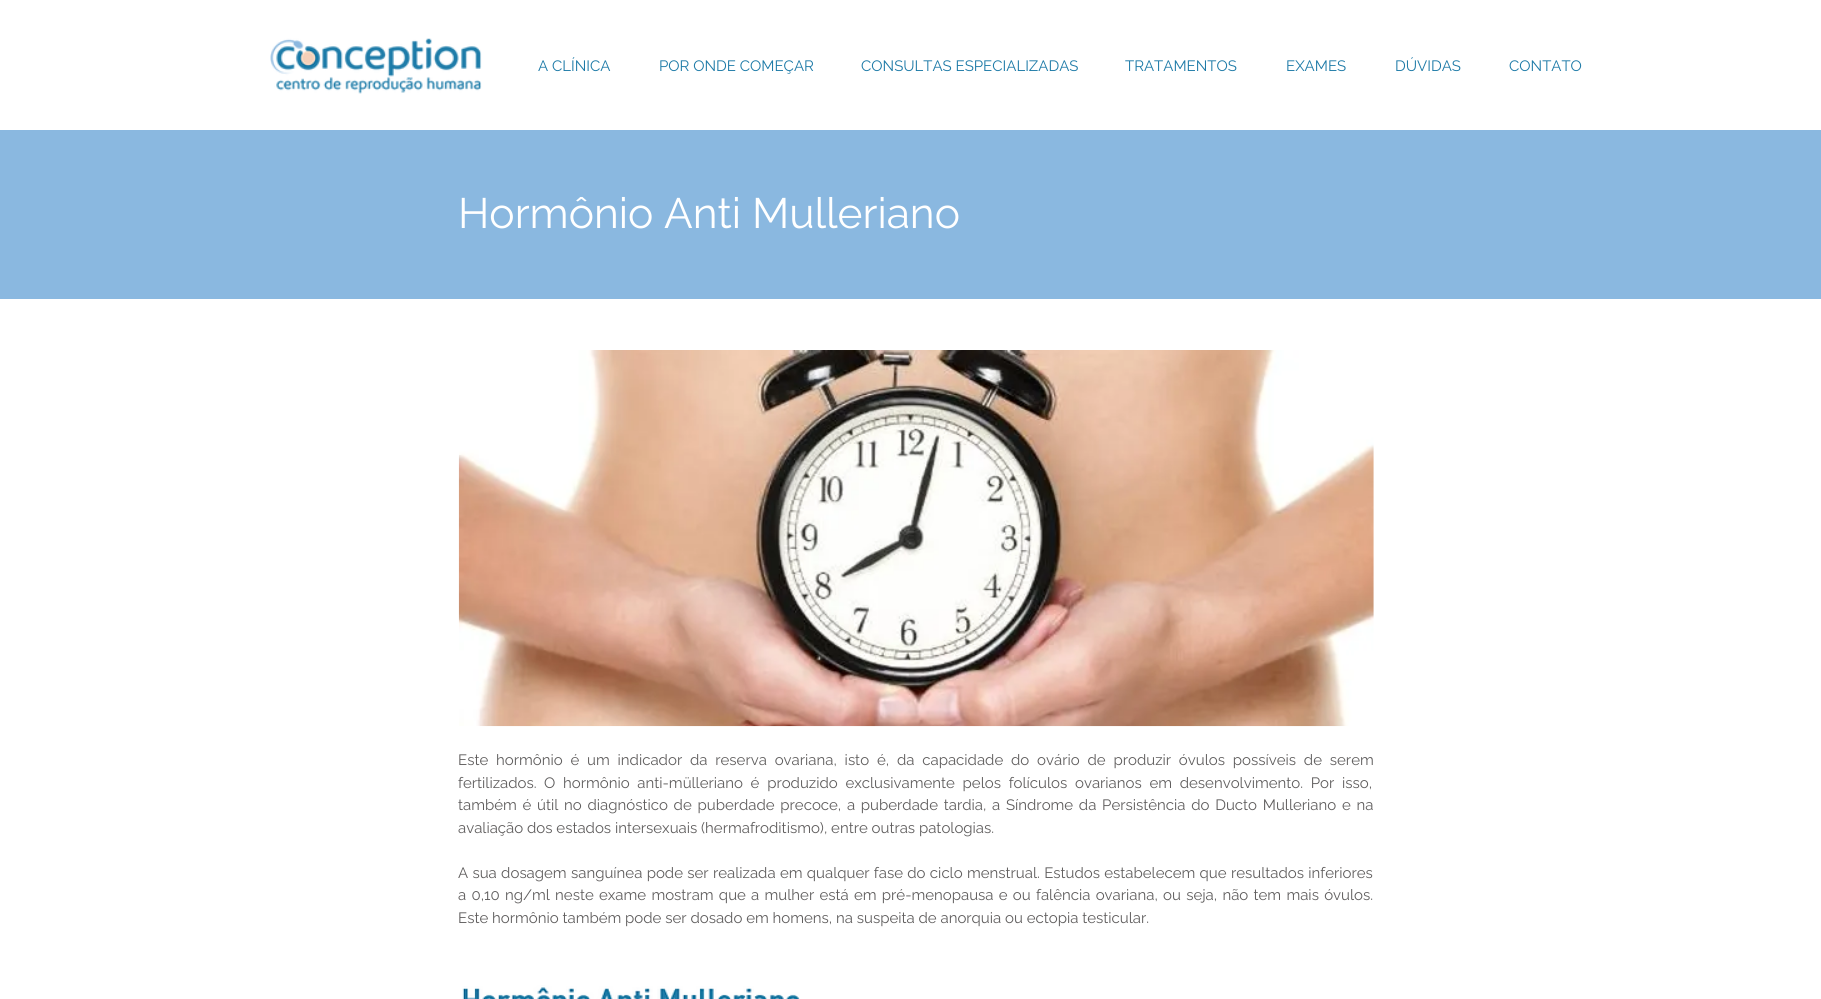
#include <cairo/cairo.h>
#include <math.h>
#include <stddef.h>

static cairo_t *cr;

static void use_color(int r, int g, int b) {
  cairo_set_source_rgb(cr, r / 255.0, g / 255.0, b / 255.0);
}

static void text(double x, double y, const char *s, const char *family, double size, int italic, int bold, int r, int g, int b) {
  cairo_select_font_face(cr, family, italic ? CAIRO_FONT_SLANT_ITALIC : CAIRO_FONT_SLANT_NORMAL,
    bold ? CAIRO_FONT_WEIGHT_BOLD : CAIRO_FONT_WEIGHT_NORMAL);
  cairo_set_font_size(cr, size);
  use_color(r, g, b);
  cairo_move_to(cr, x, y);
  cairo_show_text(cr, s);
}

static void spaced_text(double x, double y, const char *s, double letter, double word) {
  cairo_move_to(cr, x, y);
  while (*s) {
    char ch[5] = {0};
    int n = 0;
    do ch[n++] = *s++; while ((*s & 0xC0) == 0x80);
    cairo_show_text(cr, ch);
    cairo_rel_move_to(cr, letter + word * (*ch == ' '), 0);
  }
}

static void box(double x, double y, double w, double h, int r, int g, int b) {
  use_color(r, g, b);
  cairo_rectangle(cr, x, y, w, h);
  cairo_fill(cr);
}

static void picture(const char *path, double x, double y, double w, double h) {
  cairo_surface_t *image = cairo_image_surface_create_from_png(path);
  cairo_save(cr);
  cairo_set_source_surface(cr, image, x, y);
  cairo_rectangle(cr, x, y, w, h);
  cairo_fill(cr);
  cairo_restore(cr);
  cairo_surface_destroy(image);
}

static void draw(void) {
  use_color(255, 255, 255);
  cairo_paint(cr);
  picture("img_01.png", 270, 38, 212, 56);
  box(0, 130, 1821, 169, 138, 184, 224);
  picture("img_02.png", 458, 350, 916, 377);
  picture("img_03.png", 462, 985, 338, 14);
  text(538, 71, "A CLÍNICA", "Raleway", 15, 0, 0, 29, 122, 167);
  text(659, 71, "POR ONDE COMEÇAR", "Raleway", 15, 0, 0, 29, 122, 167);
  text(861, 71, "CONSULTAS ESPECIALIZADAS", "Raleway", 15, 0, 0, 29, 122, 167);
  text(1125, 71, "TRATAMENTOS", "Raleway", 15, 0, 0, 29, 122, 167);
  text(1286, 71, "EXAMES", "Raleway", 15, 0, 0, 29, 122, 167);
  text(1395, 71, "DÚVIDAS", "Raleway", 15, 0, 0, 29, 122, 167);
  text(1509, 71, "CONTATO", "Raleway", 15, 0, 0, 29, 122, 167);
  text(458, 228, "Hormônio Anti Mulleriano", "Raleway", 42.5, 0, 0, 255, 255, 255);
  cairo_set_font_size(cr, 15);
  use_color(96, 94, 94);
  spaced_text(458, 765, "Este hormônio é um indicador da reserva ovariana, isto é, da capacidade do ovário de produzir óvulos possíveis de serem", 0, 4);
  text(458, 788, "fertilizados.", "Raleway", 15, 0, 0, 96, 94, 94);
  spaced_text(544, 788, "O hormônio anti-mülleriano é produzido exclusivamente pelos folículos ovarianos em desenvolvimento. Por isso,", 0, 3.9);
  spaced_text(458, 810, "também é útil no diagnóstico de puberdade precoce, a puberdade tardia, a Síndrome da Persistência do Ducto Mulleriano e na", 0, 1.9);
  text(458, 833, "avaliação dos estados intersexuais (hermafroditismo), entre outras patologias.", "Raleway", 15, 0, 0, 96, 94, 94);
  spaced_text(458, 878, "A sua dosagem sanguínea pode ser realizada em qualquer fase do ciclo menstrual. Estudos estabelecem que resultados inferiores", 0, 0.5);
  spaced_text(458, 900, "a 0,10 ng/ml neste exame mostram que a mulher está em pré-menopausa e ou falência ovariana, ou seja, não tem mais óvulos.", 0, 1.45);
  text(458, 923, "Este hormônio também pode ser dosado em homens, na suspeita de anorquia ou ectopia testicular.", "Raleway", 15, 0, 0, 96, 94, 94);
}

int main(void) {
  cairo_surface_t *surface = cairo_image_surface_create(CAIRO_FORMAT_RGB24, 1821, 999);
  cr = cairo_create(surface);
  cairo_font_options_t *options = cairo_font_options_create();
  cairo_font_options_set_hint_metrics(options, CAIRO_HINT_METRICS_OFF);
  cairo_font_options_set_hint_style(options, CAIRO_HINT_STYLE_NONE);
  cairo_set_font_options(cr, options);
  cairo_set_miter_limit(cr, 4);
  draw();
  cairo_surface_write_to_png(surface, "out.png");
  cairo_font_options_destroy(options);
  cairo_destroy(cr);
  cairo_surface_destroy(surface);
  return 0;
}
